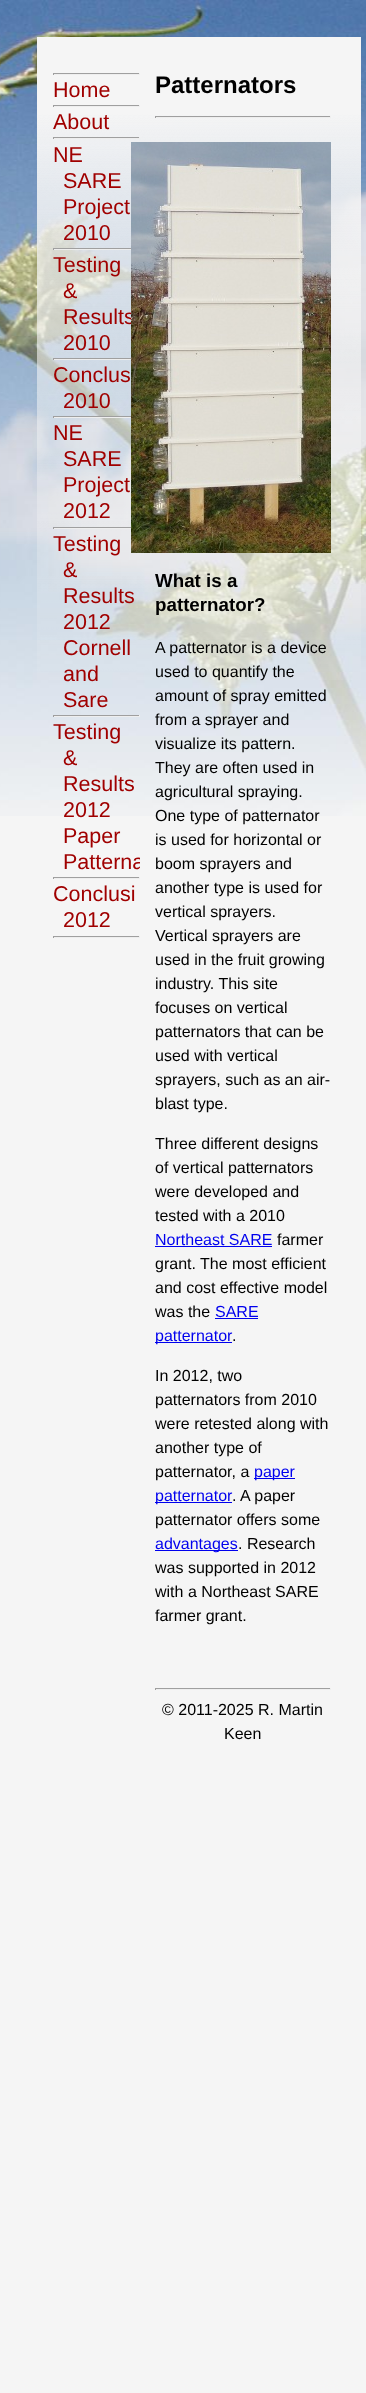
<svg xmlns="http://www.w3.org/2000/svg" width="366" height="2393">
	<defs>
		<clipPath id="clip1"><rect x="53" y="53" width="87" height="887" /></clipPath>
	</defs>
	<rect width="100%" height="100%" fill="#F5F5F5" />
	<image x="0" y="0" width="366" height="816" href="assets/img1.png" />
	<image x="37" y="37" width="324" height="643" href="assets/img2.png" />
	<rect x="53" y="73" width="87" height="1" fill="#9F9F9F" />
	<rect x="139" y="73" width="1" height="2" fill="#EEEEEE" />
	<rect x="53" y="74" width="87" height="1" fill="#EEEEEE" />
	<rect x="53" y="73" width="1" height="2" fill="#9F9F9F" />
	<text x="53" y="97" font-family="Liberation Sans" font-size="21.5" fill="#A00000">Home</text>
	<rect x="53" y="105" width="87" height="1" fill="#9F9F9F" />
	<rect x="139" y="105" width="1" height="2" fill="#EEEEEE" />
	<rect x="53" y="106" width="87" height="1" fill="#EEEEEE" />
	<rect x="53" y="105" width="1" height="2" fill="#9F9F9F" />
	<text x="53" y="129" font-family="Liberation Sans" font-size="21.5" fill="#A00000">About</text>
	<rect x="53" y="137" width="87" height="1" fill="#9F9F9F" />
	<rect x="139" y="137" width="1" height="2" fill="#EEEEEE" />
	<rect x="53" y="138" width="87" height="1" fill="#EEEEEE" />
	<rect x="53" y="137" width="1" height="2" fill="#9F9F9F" />
	<g font-family="Liberation Sans" font-size="21.5" fill="#A00000">
		<text x="53" y="162">NE</text>
		<text x="63" y="188">SARE</text>
		<text x="63" y="214">Project</text>
		<text x="63" y="240">2010</text>
	</g>
	<rect x="53" y="248" width="78" height="1" fill="#9F9F9F" />
	<rect x="53" y="249" width="78" height="1" fill="#EEEEEE" />
	<rect x="53" y="248" width="1" height="2" fill="#9F9F9F" />
	<g font-family="Liberation Sans" font-size="21.5" fill="#A00000">
		<text x="53" y="272">Testing</text>
		<text x="63" y="298">&amp;</text>
		<text x="63" y="324">Results</text>
		<text x="63" y="350">2010</text>
	</g>
	<rect x="53" y="358" width="78" height="1" fill="#9F9F9F" />
	<rect x="53" y="359" width="78" height="1" fill="#EEEEEE" />
	<rect x="53" y="358" width="1" height="2" fill="#9F9F9F" />
	<g font-family="Liberation Sans" font-size="21.5" fill="#A00000">
		<text x="53" y="382">Conclus</text>
		<text x="63" y="408">2010</text>
	</g>
	<rect x="53" y="416" width="78" height="1" fill="#9F9F9F" />
	<rect x="53" y="417" width="78" height="1" fill="#EEEEEE" />
	<rect x="53" y="416" width="1" height="2" fill="#9F9F9F" />
	<g font-family="Liberation Sans" font-size="21.5" fill="#A00000">
		<text x="53" y="440">NE</text>
		<text x="63" y="466">SARE</text>
		<text x="63" y="492">Project</text>
		<text x="63" y="518">2012</text>
	</g>
	<rect x="53" y="527" width="78" height="1" fill="#9F9F9F" />
	<rect x="53" y="528" width="78" height="1" fill="#EEEEEE" />
	<rect x="53" y="527" width="1" height="2" fill="#9F9F9F" />
	<g font-family="Liberation Sans" font-size="21.5" fill="#A00000">
		<text x="53" y="551">Testing</text>
		<text x="63" y="577">&amp;</text>
		<text x="63" y="603">Results</text>
		<text x="63" y="629">2012</text>
		<text x="63" y="655">Cornell</text>
		<text x="63" y="681">and</text>
		<text x="63" y="707">Sare</text>
	</g>
	<rect x="53" y="715" width="87" height="1" fill="#9F9F9F" />
	<rect x="139" y="715" width="1" height="2" fill="#EEEEEE" />
	<rect x="53" y="716" width="87" height="1" fill="#EEEEEE" />
	<rect x="53" y="715" width="1" height="2" fill="#9F9F9F" />
	<g font-family="Liberation Sans" font-size="21.5" fill="#A00000">
		<text x="53" y="739">Testing</text>
		<text x="63" y="765">&amp;</text>
		<text x="63" y="791">Results</text>
		<text x="63" y="817">2012</text>
		<text x="63" y="843">Paper</text>
	</g>
	<g clip-path="url(#clip1)">
		<text x="63" y="869" font-family="Liberation Sans" font-size="21.5" fill="#A00000">Patterna</text>
	</g>
	<rect x="53" y="877" width="87" height="1" fill="#9F9F9F" />
	<rect x="139" y="877" width="1" height="2" fill="#EEEEEE" />
	<rect x="53" y="878" width="87" height="1" fill="#EEEEEE" />
	<rect x="53" y="877" width="1" height="2" fill="#9F9F9F" />
	<g font-family="Liberation Sans" font-size="21.5" fill="#A00000">
		<text x="53" y="901">Conclusi</text>
		<text x="63" y="927">2012</text>
	</g>
	<rect x="53" y="936" width="87" height="1" fill="#9F9F9F" />
	<rect x="139" y="936" width="1" height="2" fill="#EEEEEE" />
	<rect x="53" y="937" width="87" height="1" fill="#EEEEEE" />
	<rect x="53" y="936" width="1" height="2" fill="#9F9F9F" />
	<text x="155" y="93" font-family="Liberation Sans" font-size="24" font-weight="700" fill="#000000">Patternators</text>
	<rect x="155" y="116" width="176" height="1" fill="#9F9F9F" />
	<rect x="330" y="116" width="1" height="2" fill="#EEEEEE" />
	<rect x="155" y="117" width="176" height="1" fill="#EEEEEE" />
	<rect x="155" y="116" width="1" height="2" fill="#9F9F9F" />
	<image x="131" y="142" width="200" height="411" href="assets/img3.png" />
	<g font-family="Liberation Sans" font-size="18.75" font-weight="700" fill="#000000">
		<text x="155" y="587">What is a</text>
		<text x="155" y="611">patternator?</text>
	</g>
	<g font-family="Liberation Sans" font-size="16" fill="#000000">
		<text x="155" y="653">A patternator is a device</text>
		<text x="155" y="677">used to quantify the</text>
		<text x="155" y="701">amount of spray emitted</text>
		<text x="155" y="725">from a sprayer and</text>
		<text x="155" y="749">visualize its pattern.</text>
		<text x="155" y="773">They are often used in</text>
		<text x="155" y="797">agricultural spraying.</text>
		<text x="155" y="821">One type of patternator</text>
		<text x="155" y="845">is used for horizontal or</text>
		<text x="155" y="869">boom sprayers and</text>
		<text x="155" y="893">another type is used for</text>
		<text x="155" y="917">vertical sprayers.</text>
		<text x="155" y="941">Vertical sprayers are</text>
		<text x="155" y="965">used in the fruit growing</text>
		<text x="155" y="989">industry. This site</text>
		<text x="155" y="1013">focuses on vertical</text>
		<text x="155" y="1037">patternators that can be</text>
		<text x="155" y="1061">used with vertical</text>
		<text x="155" y="1085">sprayers, such as an air-</text>
		<text x="155" y="1109">blast type.</text>
		<text x="155" y="1149">Three different designs</text>
		<text x="155" y="1173">of vertical patternators</text>
		<text x="155" y="1197">were developed and</text>
		<text x="155" y="1221">tested with a 2010</text>
	</g>
	<text x="155" y="1245" font-family="Liberation Sans" font-size="16" fill="#0000EE">Northeast SARE</text>
	<rect x="155" y="1246" width="117" height="1" fill="#0000EE" />
	<g font-family="Liberation Sans" font-size="16" fill="#000000">
		<text x="277" y="1245">farmer</text>
		<text x="155" y="1269">grant. The most efficient</text>
		<text x="155" y="1293">and cost effective model</text>
		<text x="155" y="1317">was the</text>
	</g>
	<text x="215" y="1317" font-family="Liberation Sans" font-size="16" fill="#0000EE">SARE</text>
	<rect x="215" y="1318" width="43" height="1" fill="#0000EE" />
	<rect x="155" y="1342" width="77" height="1" fill="#0000EE" />
	<text x="155" y="1341" font-family="Liberation Sans" font-size="16" fill="#0000EE">patternator</text>
	<g font-family="Liberation Sans" font-size="16" fill="#000000">
		<text x="232" y="1341">.</text>
		<text x="155" y="1381">In 2012, two</text>
		<text x="155" y="1405">patternators from 2010</text>
		<text x="155" y="1429">were retested along with</text>
		<text x="155" y="1453">another type of</text>
		<text x="155" y="1477">patternator, a</text>
	</g>
	<rect x="254" y="1478" width="41" height="1" fill="#0000EE" />
	<text x="254" y="1477" font-family="Liberation Sans" font-size="16" fill="#0000EE">paper</text>
	<rect x="155" y="1502" width="77" height="1" fill="#0000EE" />
	<text x="155" y="1501" font-family="Liberation Sans" font-size="16" fill="#0000EE">patternator</text>
	<g font-family="Liberation Sans" font-size="16" fill="#000000">
		<text x="232" y="1501">. A paper</text>
		<text x="155" y="1525">patternator offers some</text>
	</g>
	<rect x="155" y="1550" width="83" height="1" fill="#0000EE" />
	<text x="155" y="1549" font-family="Liberation Sans" font-size="16" fill="#0000EE">advantages</text>
	<g font-family="Liberation Sans" font-size="16" fill="#000000">
		<text x="238" y="1549">. Research</text>
		<text x="155" y="1573">was supported in 2012</text>
		<text x="155" y="1597">with a Northeast SARE</text>
		<text x="155" y="1621">farmer grant.</text>
	</g>
	<rect x="155" y="1688" width="176" height="1" fill="#9F9F9F" />
	<rect x="330" y="1688" width="1" height="2" fill="#EEEEEE" />
	<rect x="155" y="1689" width="176" height="1" fill="#EEEEEE" />
	<rect x="155" y="1688" width="1" height="2" fill="#9F9F9F" />
	<g font-family="Liberation Sans" font-size="16" fill="#000000">
		<text x="162" y="1715">© 2011-2025 R. Martin</text>
		<text x="224" y="1739">Keen</text>
	</g>
</svg>
